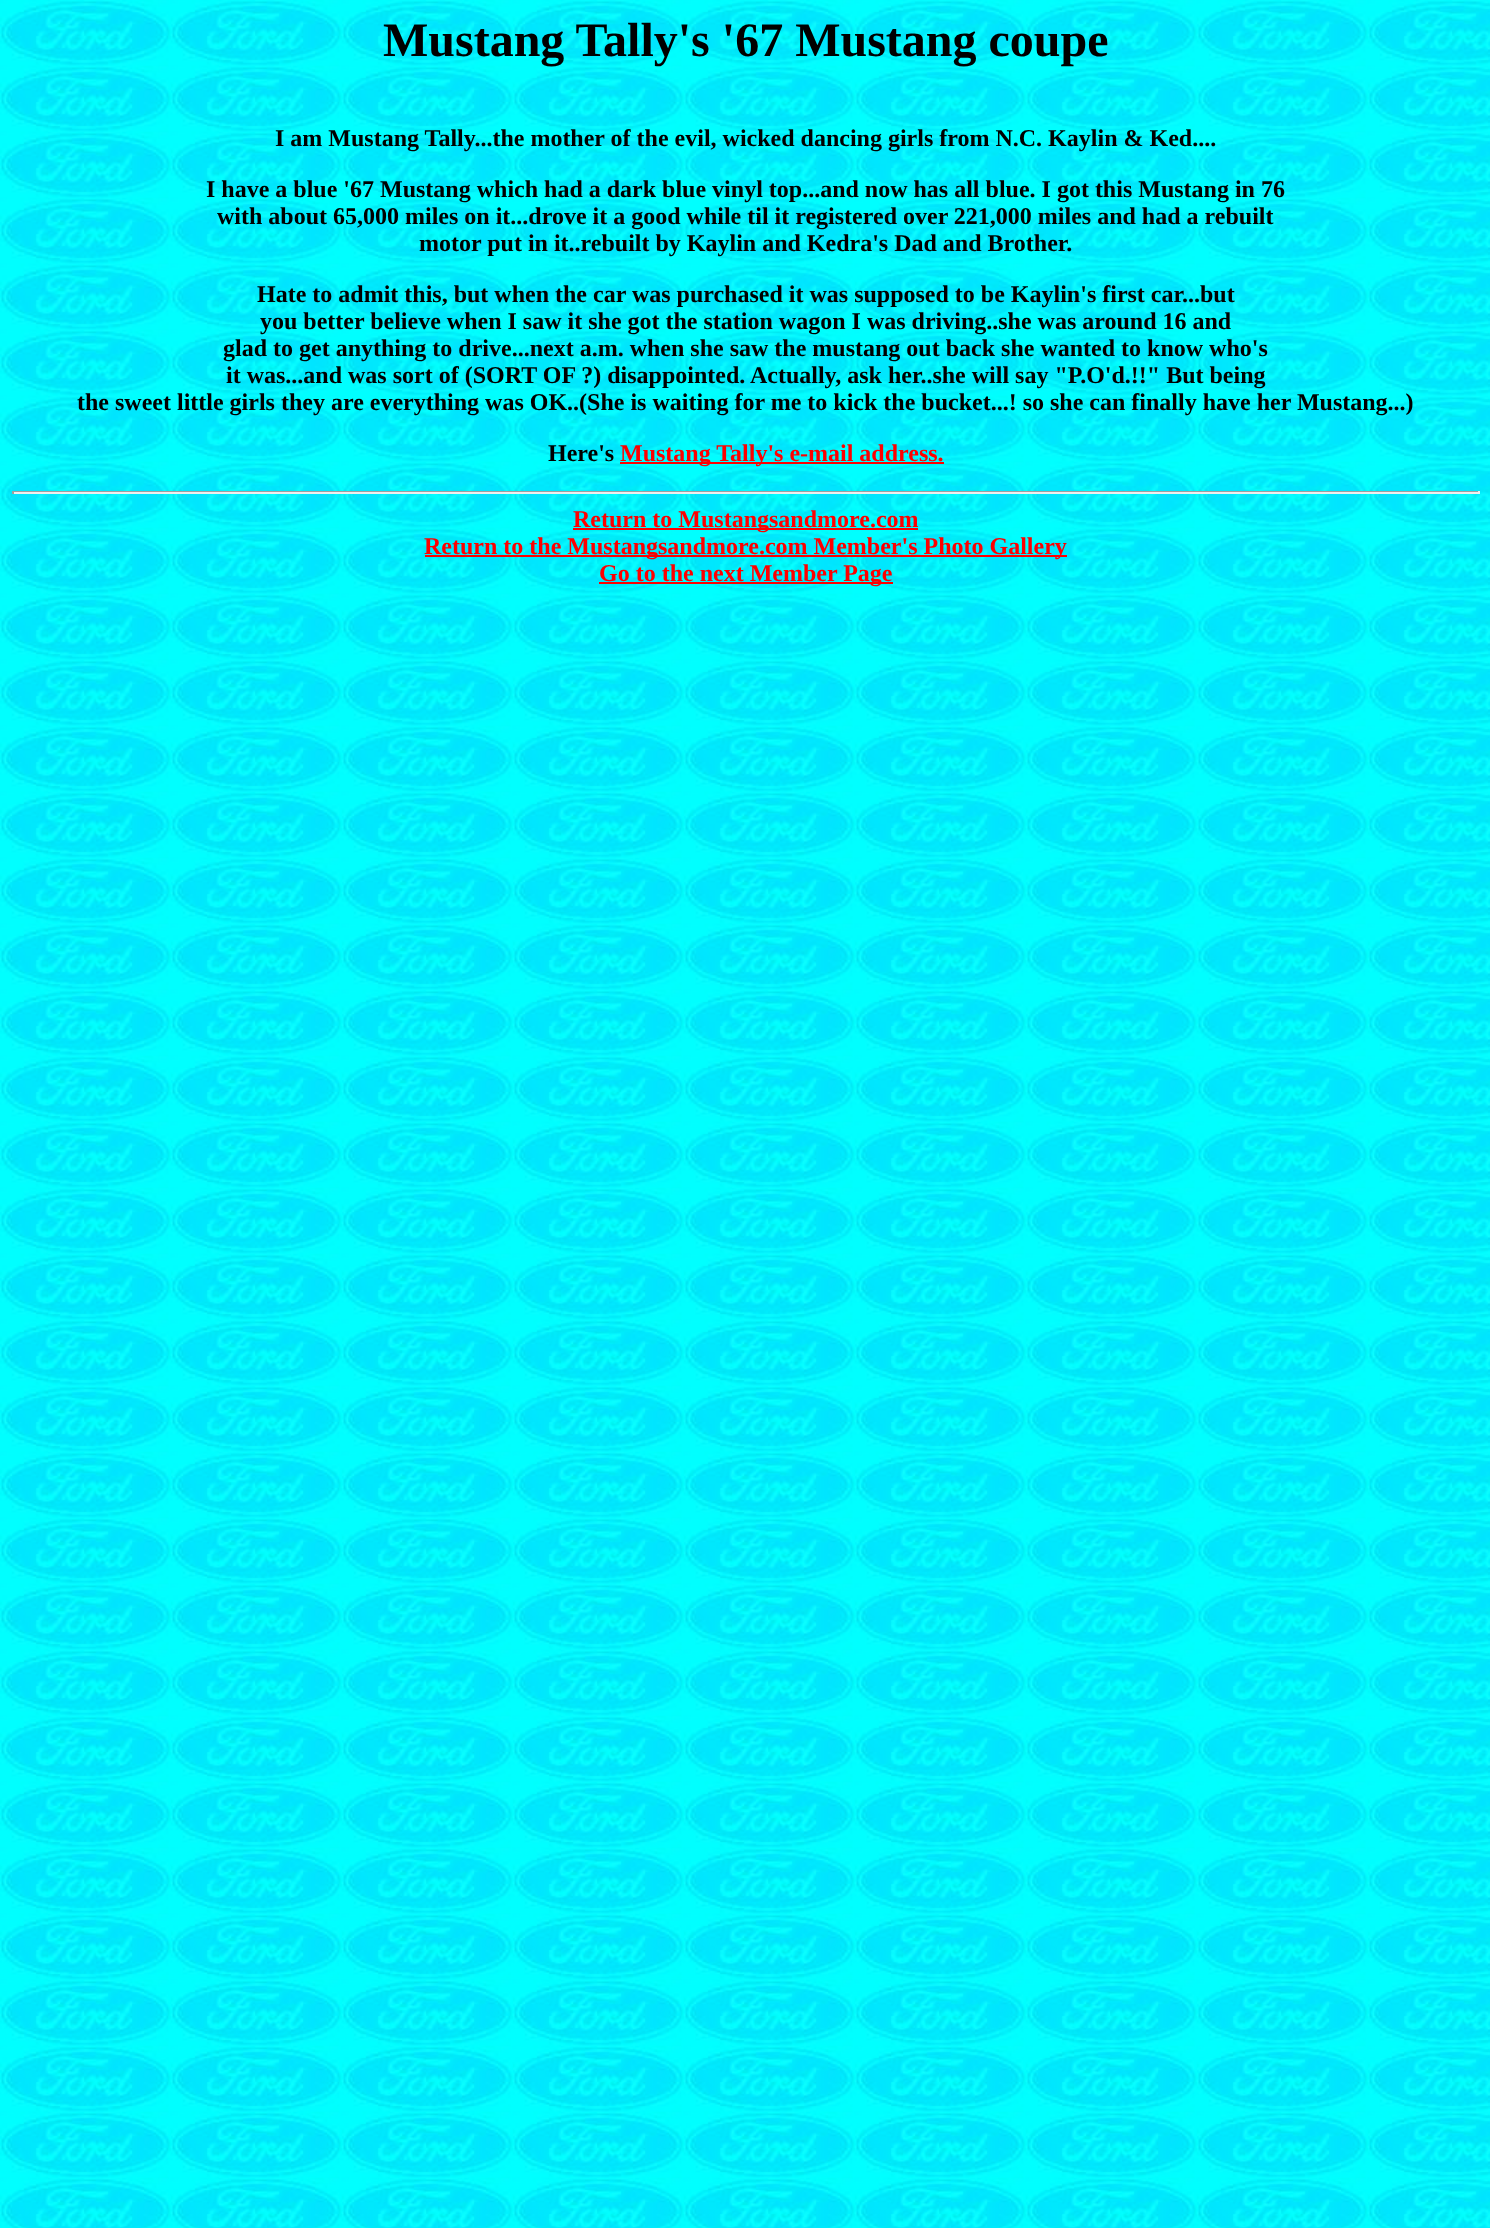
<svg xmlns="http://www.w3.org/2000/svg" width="1490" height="2228">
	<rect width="100%" height="100%" fill="#FFFFFF" />
	<image x="0" y="0" width="1490" height="2228" href="assets/img1.png" />
	<text x="383" y="56" font-family="Liberation Serif" font-size="48" font-weight="700" fill="#000000">Mustang Tally's '67 Mustang coupe</text>
	<g font-family="Liberation Serif" font-size="24" font-weight="700" fill="#000000">
		<text x="275" y="146">I am Mustang Tally...the mother of the evil, wicked dancing girls from N.C. Kaylin &amp; Ked....</text>
		<text x="206" y="197">I have a blue '67 Mustang which had a dark blue vinyl top...and now has all blue. I got this Mustang in 76</text>
		<text x="217" y="224">with about 65,000 miles on it...drove it a good while til it registered over 221,000 miles and had a rebuilt</text>
		<text x="419" y="251">motor put in it..rebuilt by Kaylin and Kedra's Dad and Brother.</text>
		<text x="257" y="302">Hate to admit this, but when the car was purchased it was supposed to be Kaylin's first car...but</text>
		<text x="260" y="329">you better believe when I saw it she got the station wagon I was driving..she was around 16 and</text>
		<text x="223" y="356">glad to get anything to drive...next a.m. when she saw the mustang out back she wanted to know who's</text>
		<text x="226" y="383">it was...and was sort of (SORT OF ?) disappointed. Actually, ask her..she will say "P.O'd.!!" But being</text>
		<text x="77" y="410">the sweet little girls they are everything was OK..(She is waiting for me to kick the bucket...! so she can finally have her Mustang...)</text>
		<text x="548" y="461">Here's</text>
	</g>
	<rect x="620" y="462" width="324" height="2" fill="#FF0000" />
	<text x="620" y="461" font-family="Liberation Serif" font-size="24" font-weight="700" fill="#FF0000">Mustang Tally's e-mail address.</text>
	<rect x="12" y="491" width="1467" height="1" fill="#9F9F9F" />
	<rect x="1478" y="491" width="2" height="3" fill="#EEEEEE" />
	<rect x="12" y="492" width="1467" height="2" fill="#EEEEEE" />
	<rect x="12" y="491" width="2" height="3" fill="#9F9F9F" />
	<rect x="573" y="528" width="345" height="2" fill="#FF0000" />
	<text x="573" y="527" font-family="Liberation Serif" font-size="24" font-weight="700" fill="#FF0000">Return to Mustangsandmore.com</text>
	<rect x="425" y="555" width="642" height="2" fill="#FF0000" />
	<text x="424" y="554" font-family="Liberation Serif" font-size="24" font-weight="700" fill="#FF0000">Return to the Mustangsandmore.com Member's Photo Gallery</text>
	<rect x="599" y="582" width="294" height="2" fill="#FF0000" />
	<text x="599" y="581" font-family="Liberation Serif" font-size="24" font-weight="700" fill="#FF0000">Go to the next Member Page</text>
</svg>
